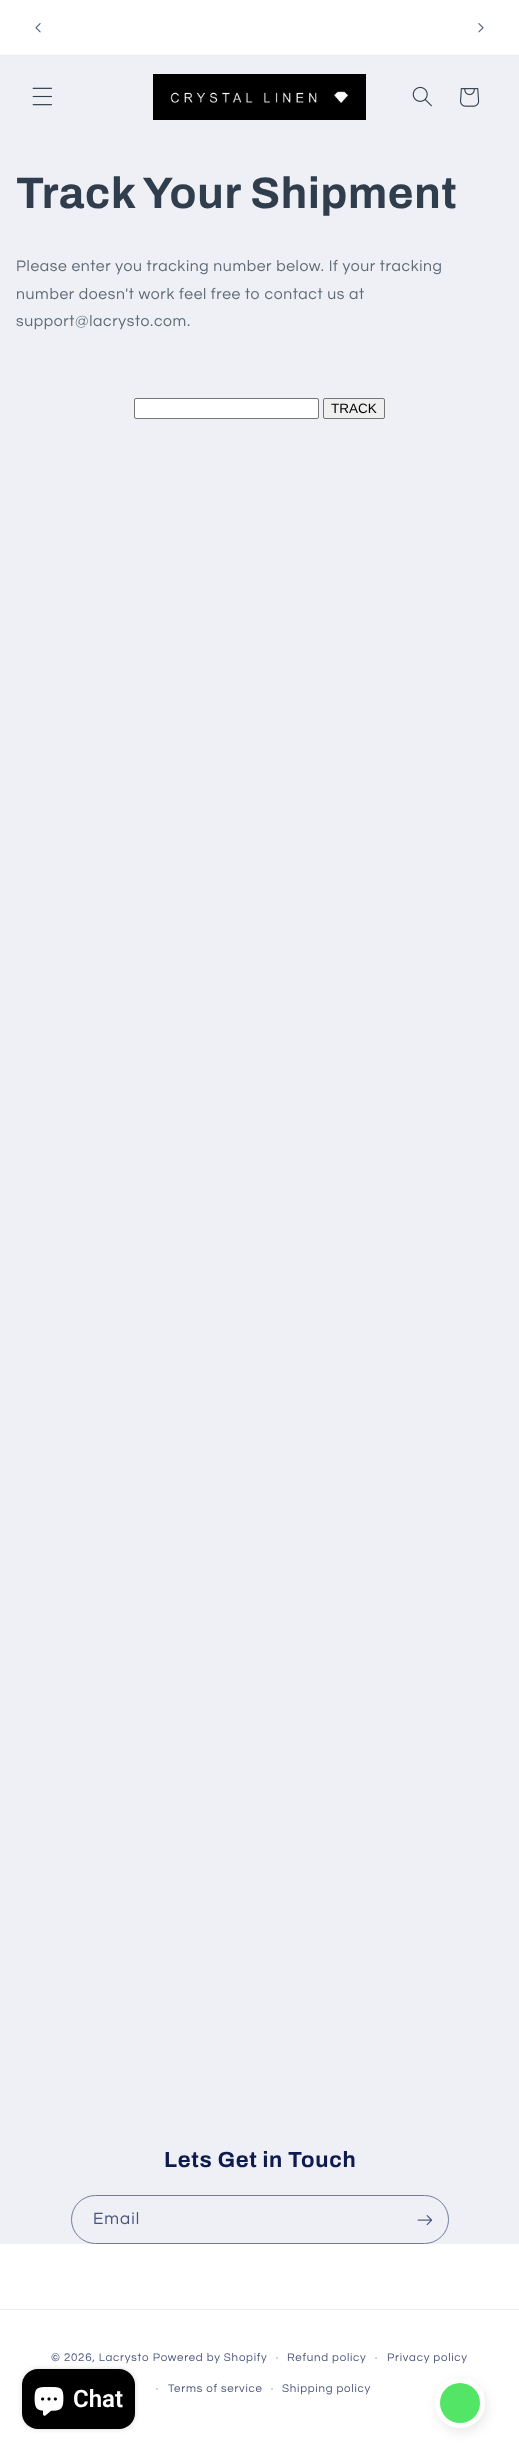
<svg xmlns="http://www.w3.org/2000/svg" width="519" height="2450">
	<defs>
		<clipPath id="clip1"><path d="M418 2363H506V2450H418ZM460 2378C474 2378 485 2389 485 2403C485 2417 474 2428 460 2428C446 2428 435 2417 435 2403C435 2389 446 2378 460 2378Z" clip-rule="evenodd" /></clipPath>
	</defs>
	<rect width="100%" height="100%" fill="#EFF0F5" />
	<rect x="0" y="0" width="519" height="55" fill="#FFFFFF" />
	<rect x="0" y="55" width="519" height="1" fill="#ECEDF1" />
	<image x="35" y="23" width="6" height="10" href="assets/img1.png" />
	<image x="478" y="23" width="6" height="10" href="assets/img2.png" />
	<image x="32" y="87" width="20" height="19" href="assets/img3.png" />
	<image x="153" y="74" width="213" height="46" href="assets/img4.png" />
	<image x="412" y="86" width="20" height="21" href="assets/img5.png" />
	<image x="460" y="88" width="20" height="19" href="assets/img6.png" />
	<text x="16" y="208" font-family="Archivo" font-size="44" font-weight="700" letter-spacing="0.7" fill="#2F3D4C">Track Your Shipment</text>
	<g font-family="Questrial" font-size="15.75" letter-spacing="0.63" fill="#5F6A76">
		<text x="16" y="271">Please enter you tracking number below. If your tracking</text>
		<text x="16" y="299">number doesn't work feel free to contact us at</text>
		<text x="16" y="326">support@lacrysto.com.</text>
	</g>
	<rect x="134.5" y="398.5" width="184" height="20" rx="1.5" fill="#FFFFFF" stroke="#767676" />
	<rect x="323.5" y="398.5" width="61" height="20" rx="1.5" fill="#EFEFEF" stroke="#767676" />
	<text x="331" y="413" font-family="Liberation Sans" font-size="13.5" fill="#000000">TRACK</text>
	<text x="164" y="2167" font-family="Archivo" font-size="22" font-weight="700" letter-spacing="0.7" fill="#0E1B4D">Lets Get in Touch</text>
	<rect x="71.5" y="2195.5" width="377" height="48" rx="24" fill="none" stroke="#737B99" />
	<text x="93" y="2224" font-family="Questrial" font-size="17" letter-spacing="1" fill="#4A547A">Email</text>
	<image x="417" y="2215" width="15" height="11" href="assets/img7.png" />
	<rect x="0" y="2244" width="519" height="206" fill="#FFFFFF" />
	<rect x="0" y="2309" width="519" height="1" fill="#ECEDF1" />
	<text x="51" y="2361" font-family="Questrial" font-size="11.5" letter-spacing="0.75" fill="#4A547A">© 2026, Lacrysto Powered by Shopify</text>
	<text x="276" y="2361" font-family="Questrial" font-size="10" letter-spacing="0.75" fill="#4A547A">·</text>
	<text x="287" y="2361" font-family="Questrial" font-size="11.5" letter-spacing="0.75" fill="#4A547A">Refund policy</text>
	<text x="375" y="2361" font-family="Questrial" font-size="10" letter-spacing="0.75" fill="#4A547A">·</text>
	<text x="387" y="2361" font-family="Questrial" font-size="11.5" letter-spacing="0.75" fill="#4A547A">Privacy policy</text>
	<text x="156" y="2392" font-family="Questrial" font-size="10" letter-spacing="0.75" fill="#4A547A">·</text>
	<text x="168" y="2392" font-family="Questrial" font-size="11.5" letter-spacing="0.75" fill="#4A547A">Terms of service</text>
	<text x="271" y="2392" font-family="Questrial" font-size="10" letter-spacing="0.75" fill="#4A547A">·</text>
	<text x="282" y="2392" font-family="Questrial" font-size="11.5" letter-spacing="0.75" fill="#4A547A">Shipping policy</text>
	<rect x="22" y="2369" width="113" height="60" rx="16" fill="#000000" fill-opacity="0.15" filter="blur(2.5px)" />
	<rect x="22" y="2369" width="113" height="60" rx="16" fill="#000000" />
	<image x="34" y="2387" width="30" height="29" href="assets/img8.png" />
	<text x="73" y="2407" font-family="Roboto" font-size="24" font-weight="600" fill="#FFFFFF">Chat</text>
	<g clip-path="url(#clip1)">
		<rect x="437" y="2382" width="50" height="50" rx="25" fill="#000000" fill-opacity="0.09" filter="blur(6px)" />
	</g>
	<circle cx="460" cy="2403" r="20" fill="#53E666" />
</svg>
